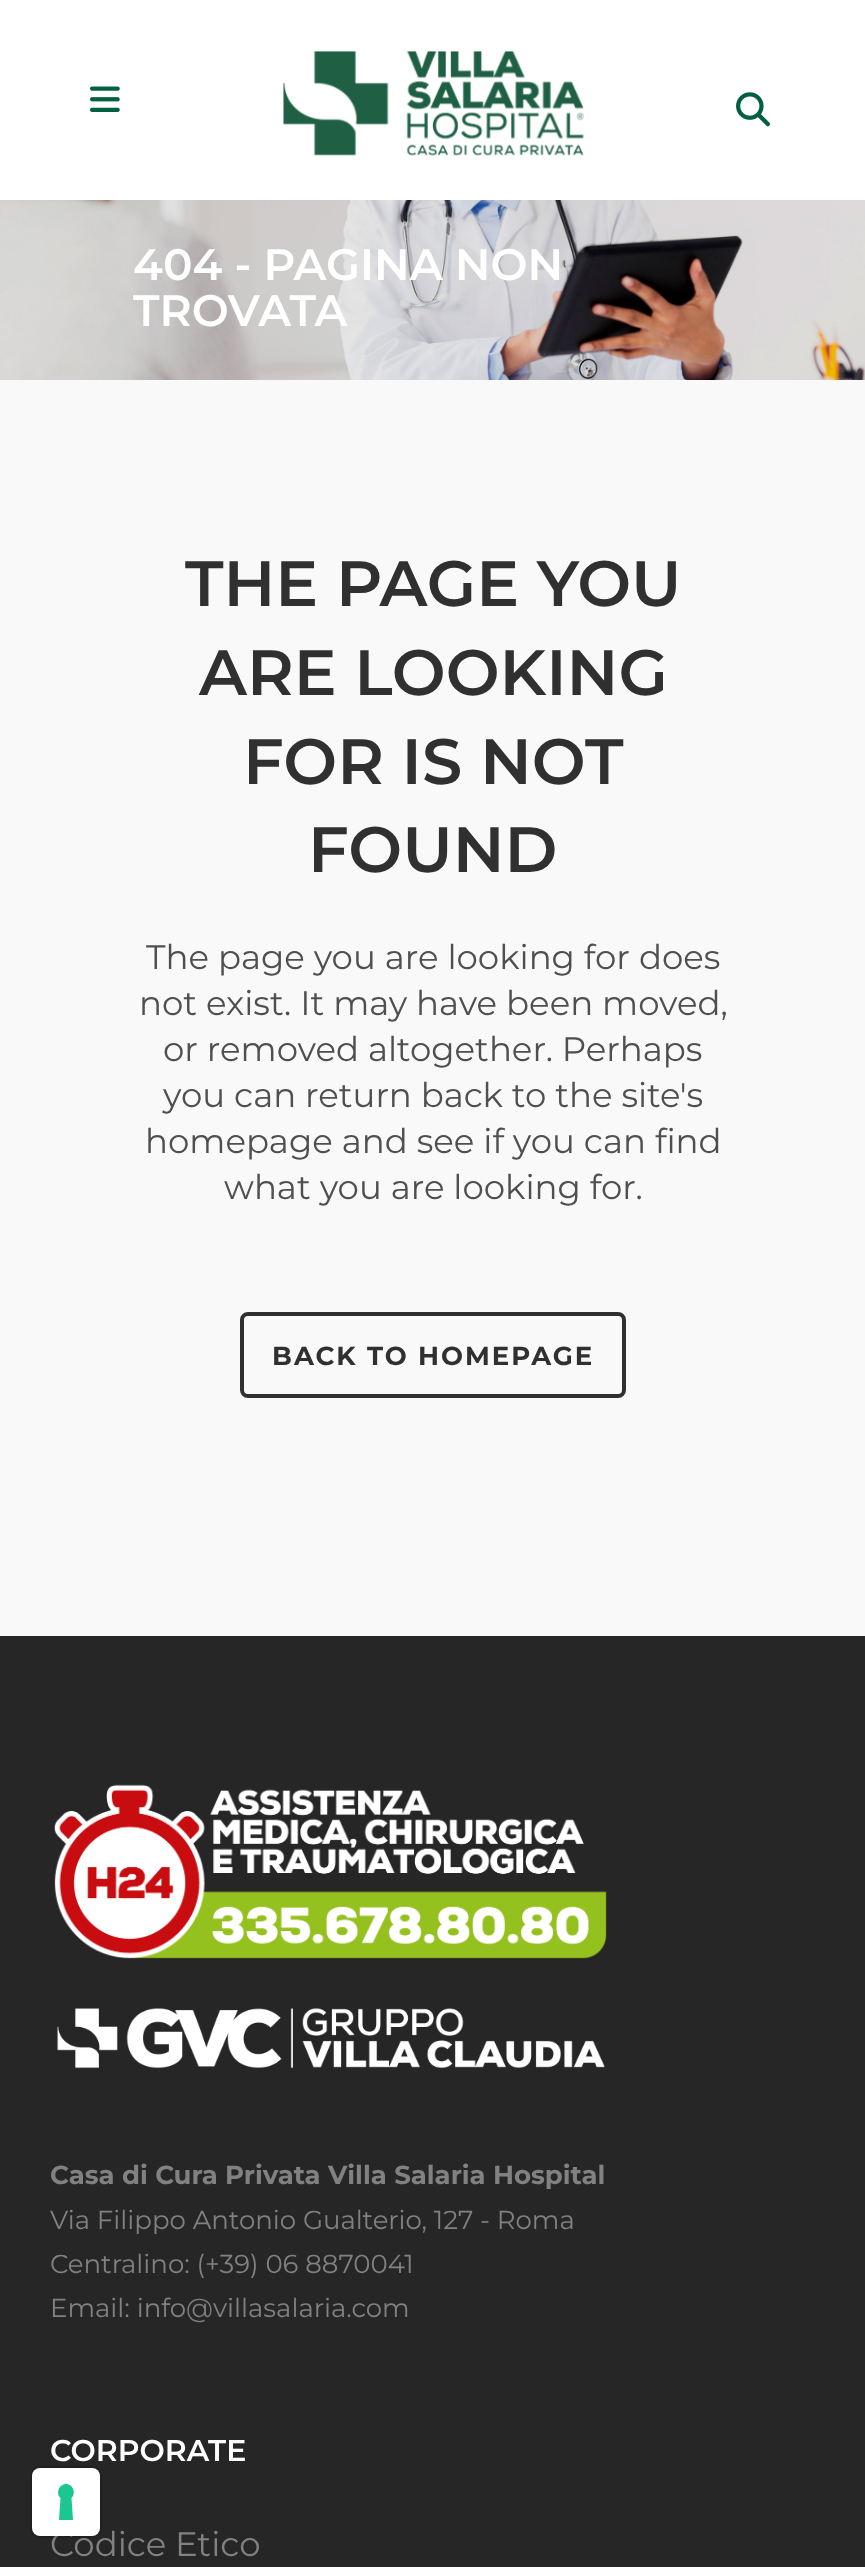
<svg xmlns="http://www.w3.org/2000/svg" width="865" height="2567">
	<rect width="100%" height="100%" fill="#F9F9F9" />
	<rect x="0" y="0" width="865" height="200" fill="#FFFFFF" />
	<image x="90" y="86" width="30" height="26" href="assets/img1.png" />
	<image x="283" y="51" width="301" height="105" href="assets/img2.png" />
	<image x="736" y="92" width="34" height="35" href="assets/img3.png" />
	<image x="0" y="200" width="865" height="180" href="assets/img4.png" />
	<g font-family="Montserrat" font-size="44" font-weight="600" fill="#FFFFFF">
		<text x="133" y="280">404 - PAGINA NON</text>
		<text x="133" y="326">TROVATA</text>
	</g>
	<g font-family="Montserrat" font-size="64" font-weight="600" fill="#303030">
		<text x="185" y="606">THE PAGE YOU</text>
		<text x="199" y="695">ARE LOOKING</text>
		<text x="243" y="784">FOR IS NOT</text>
		<text x="308" y="872">FOUND</text>
	</g>
	<g font-family="Montserrat" font-size="34" fill="#4F4F4F">
		<text x="146" y="969">The page you are looking for does</text>
		<text x="139" y="1015">not exist. It may have been moved,</text>
		<text x="163" y="1061">or removed altogether. Perhaps</text>
		<text x="163" y="1107">you can return back to the site's</text>
		<text x="145" y="1153">homepage and see if you can find</text>
		<text x="224" y="1199">what you are looking for.</text>
	</g>
	<rect x="242" y="1314" width="382" height="82" rx="6" fill="none" stroke="#303030" stroke-width="4" />
	<text x="272" y="1365" font-family="Montserrat" font-size="26" font-weight="700" letter-spacing="2" fill="#303030">BACK TO HOMEPAGE</text>
	<rect x="0" y="1636" width="865" height="931" fill="#262626" />
	<image x="54" y="1784" width="553" height="175" href="assets/img5.png" />
	<image x="57" y="2008" width="548" height="61" href="assets/img6.png" />
	<text x="50" y="2184" font-family="Montserrat" font-size="26" font-weight="700" fill="#818181">Casa di Cura Privata Villa Salaria Hospital</text>
	<g font-family="Montserrat" font-size="26" fill="#818181">
		<text x="50" y="2229">Via Filippo Antonio Gualterio, 127 - Roma</text>
		<text x="50" y="2273">Centralino: (+39) 06 8870041</text>
		<text x="50" y="2317">Email: info@villasalaria.com</text>
	</g>
	<text x="50" y="2461" font-family="Montserrat" font-size="30" font-weight="600" fill="#FFFFFF">CORPORATE</text>
	<text x="50" y="2556" font-family="Montserrat" font-size="34" fill="#818181">Codice Etico</text>
	<rect x="31" y="2467" width="70" height="70" rx="9" fill="none" stroke="#000000" stroke-opacity="0.15" stroke-width="2" />
	<rect x="32" y="2468" width="68" height="68" rx="8" fill="#FFFFFF" />
	<path d="M66 2484C73 2484 76.5 2493.5 71.5 2498L73 2520H59L60.5 2498C55.5 2493.5 59 2484 66 2484Z" fill="#1CC691" fill-rule="evenodd" />
</svg>
